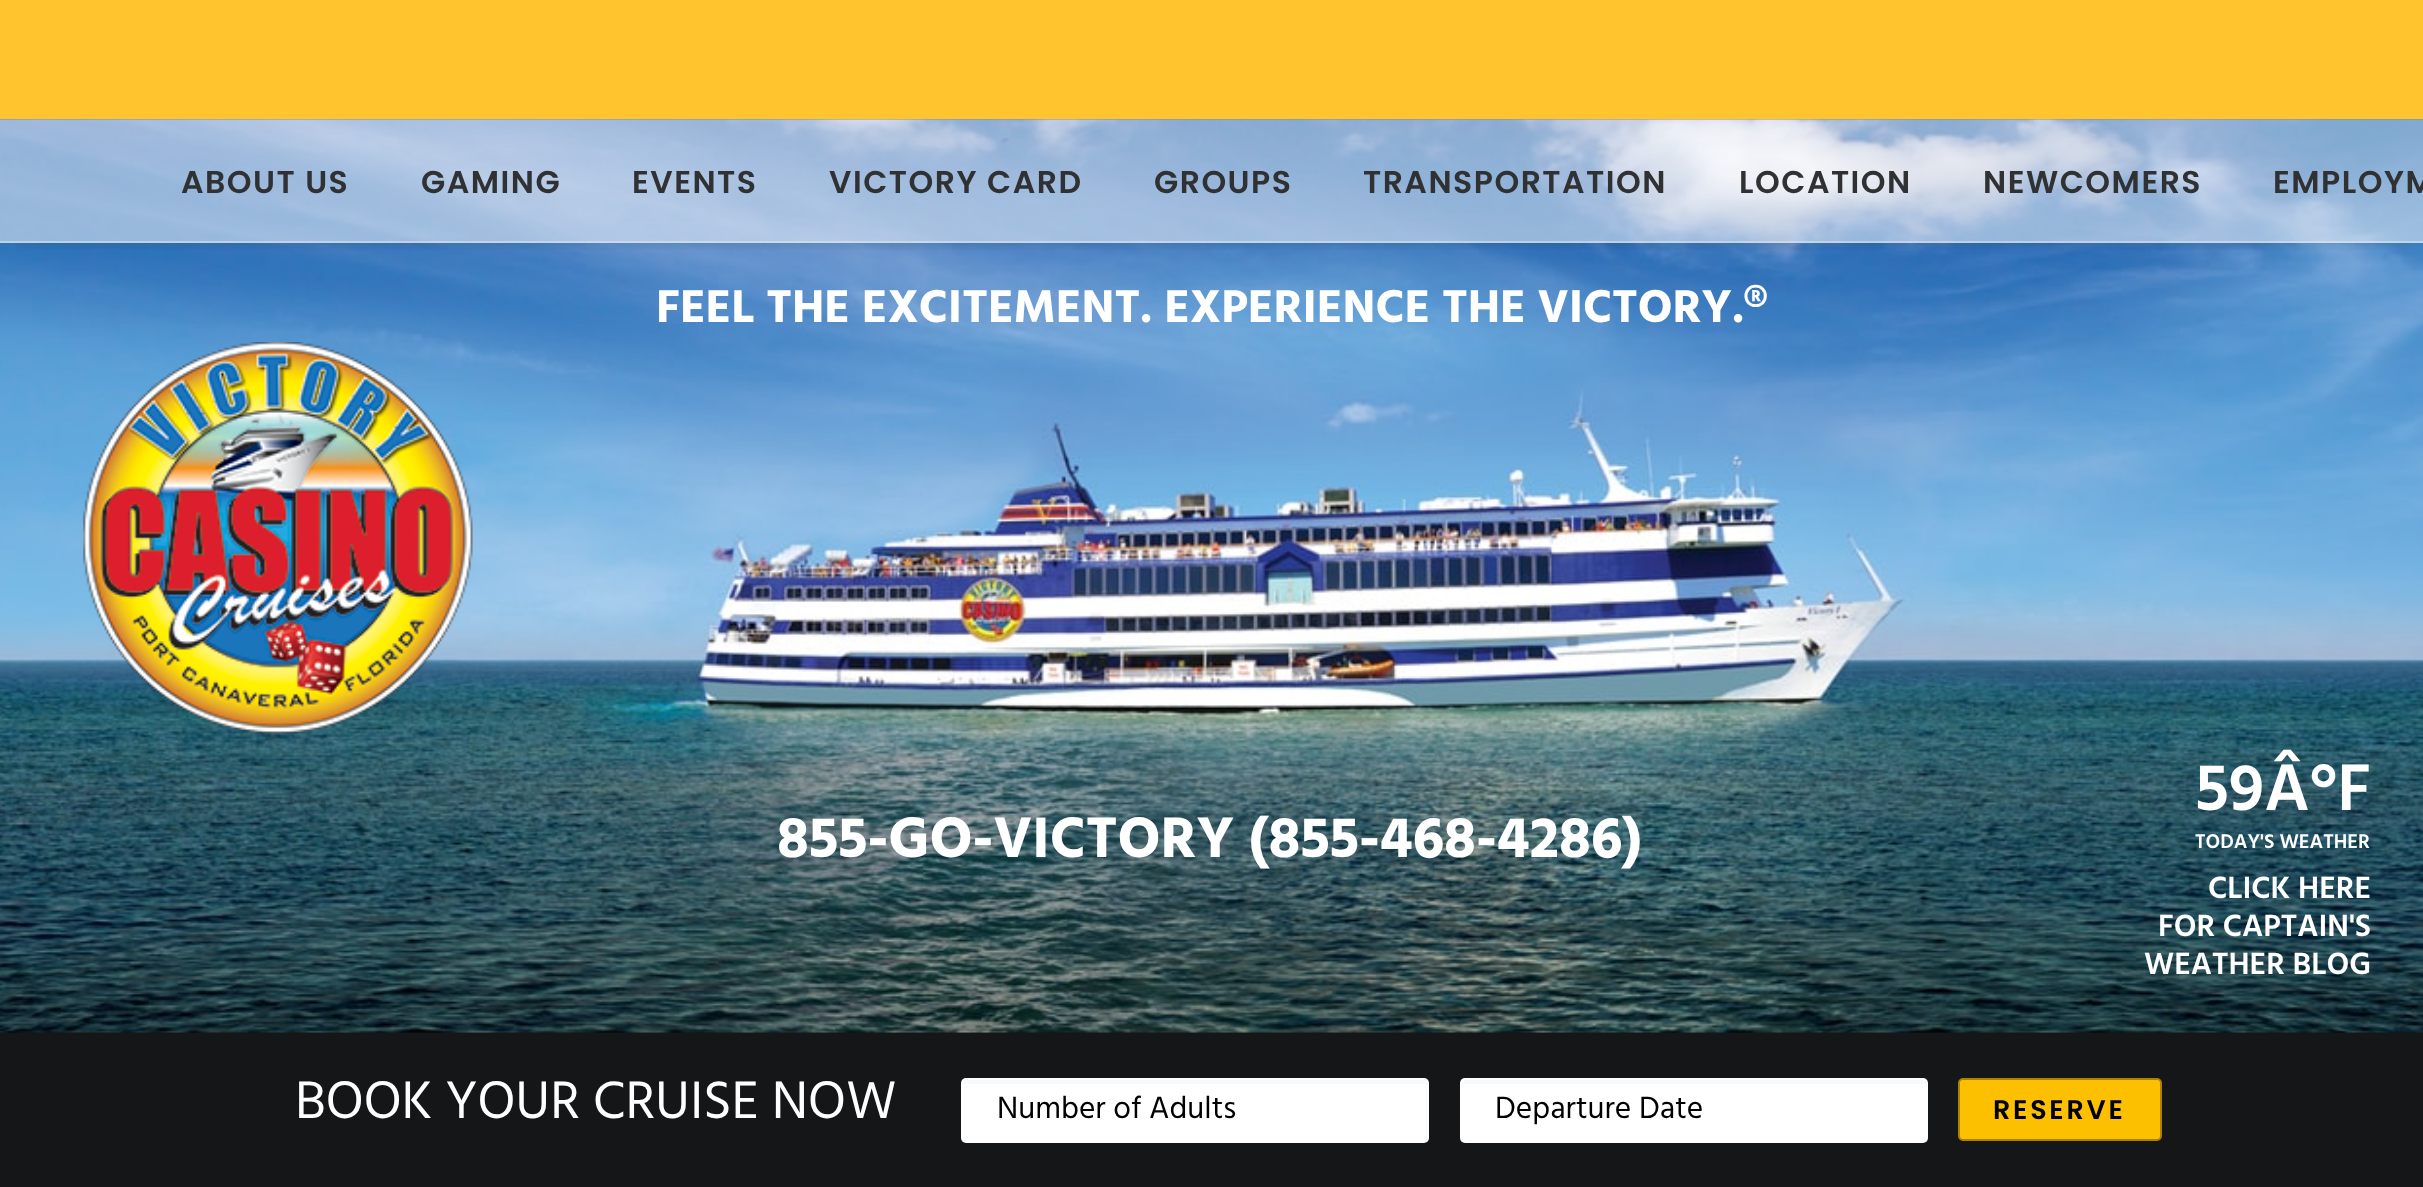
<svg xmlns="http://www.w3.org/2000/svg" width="2423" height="1187">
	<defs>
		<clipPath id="clip1"><rect x="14" y="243" width="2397" height="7" /></clipPath>
	</defs>
	<rect width="100%" height="100%" fill="#141618" />
	<rect x="0" y="0" width="2423" height="119" fill="#FFC42E" />
	<image x="0" y="119" width="2423" height="914" href="assets/img1.png" />
	<g clip-path="url(#clip1)">
		<rect x="20" y="151" width="2385" height="79" fill="#000000" fill-opacity="0.6" filter="blur(11px)" />
	</g>
	<rect x="0" y="119" width="2423" height="124" fill="#FFFFFF" fill-opacity="0.5" />
	<rect x="0" y="241" width="2423" height="2" fill="#EAEAEA" fill-opacity="0.5" />
	<g font-family="Poppins" font-size="31.5" font-weight="600" letter-spacing="1.5" fill="#303133">
		<text x="181" y="193">ABOUT US</text>
		<text x="421" y="193">GAMING</text>
		<text x="632" y="193">EVENTS</text>
		<text x="829" y="193">VICTORY CARD</text>
		<text x="1154" y="193">GROUPS</text>
		<text x="1363" y="193">TRANSPORTATION</text>
		<text x="1739" y="193">LOCATION</text>
		<text x="1983" y="193">NEWCOMERS</text>
		<text x="2273" y="193">EMPLOYM</text>
	</g>
	<text x="656" y="322" font-family="Hind" font-size="47.25" font-weight="700" fill="#FFFFFF">FEEL THE EXCITEMENT. EXPERIENCE THE VICTORY.®</text>
	<image x="83" y="342" width="390" height="392" href="assets/img2.png" />
	<text x="777" y="857" font-family="Hind" font-size="58.5" font-weight="700" fill="#FFFFFF">855-GO-VICTORY (855-468-4286)</text>
	<text x="2195" y="810" font-family="Hind" font-size="67.5" font-weight="600" fill="#FFFFFF">59Â°F</text>
	<text x="2195" y="848" font-family="Hind" font-size="20.25" font-weight="600" fill="#FFFFFF">TODAY'S WEATHER</text>
	<g font-family="Hind" font-size="31.5" font-weight="600" fill="#FFFFFF">
		<text x="2208" y="898">CLICK HERE</text>
		<text x="2158" y="936">FOR CAPTAIN'S</text>
		<text x="2144" y="974">WEATHER BLOG</text>
	</g>
	<text x="295" y="1118" font-family="Hind" font-size="54" fill="#FFFFFF">BOOK YOUR CRUISE NOW</text>
	<rect x="961" y="1078" width="468" height="65" rx="5" fill="#FFFFFF" />
	<path d="M965 1084H1424C1425 1084 1426 1086 1426 1087V1141C1427 1140 1427 1140 1427 1139V1082C1427 1081 1426 1080 1425 1080H965C964 1080 963 1081 963 1082V1087C963 1086 964 1084 965 1084Z" fill="#F9F9F9" />
	<text x="997" y="1118" font-family="Hind" font-size="31.5" fill="#000000">Number of Adults</text>
	<rect x="1460" y="1078" width="468" height="65" rx="5" fill="#FFFFFF" />
	<path d="M1465 1084H1924C1925 1084 1926 1086 1926 1087V1082C1926 1081 1925 1080 1924 1080H1465C1464 1080 1463 1081 1463 1082V1085Z" fill="#F9F9F9" />
	<text x="1495" y="1118" font-family="Hind" font-size="31.5" fill="#000000">Departure Date</text>
	<rect x="1959" y="1079" width="202" height="61" rx="4" fill="#FCC000" stroke="#AB8304" stroke-width="2" />
	<text x="1993" y="1119" font-family="Poppins" font-size="27" font-weight="600" letter-spacing="2.75" fill="#000000">RESERVE</text>
</svg>
